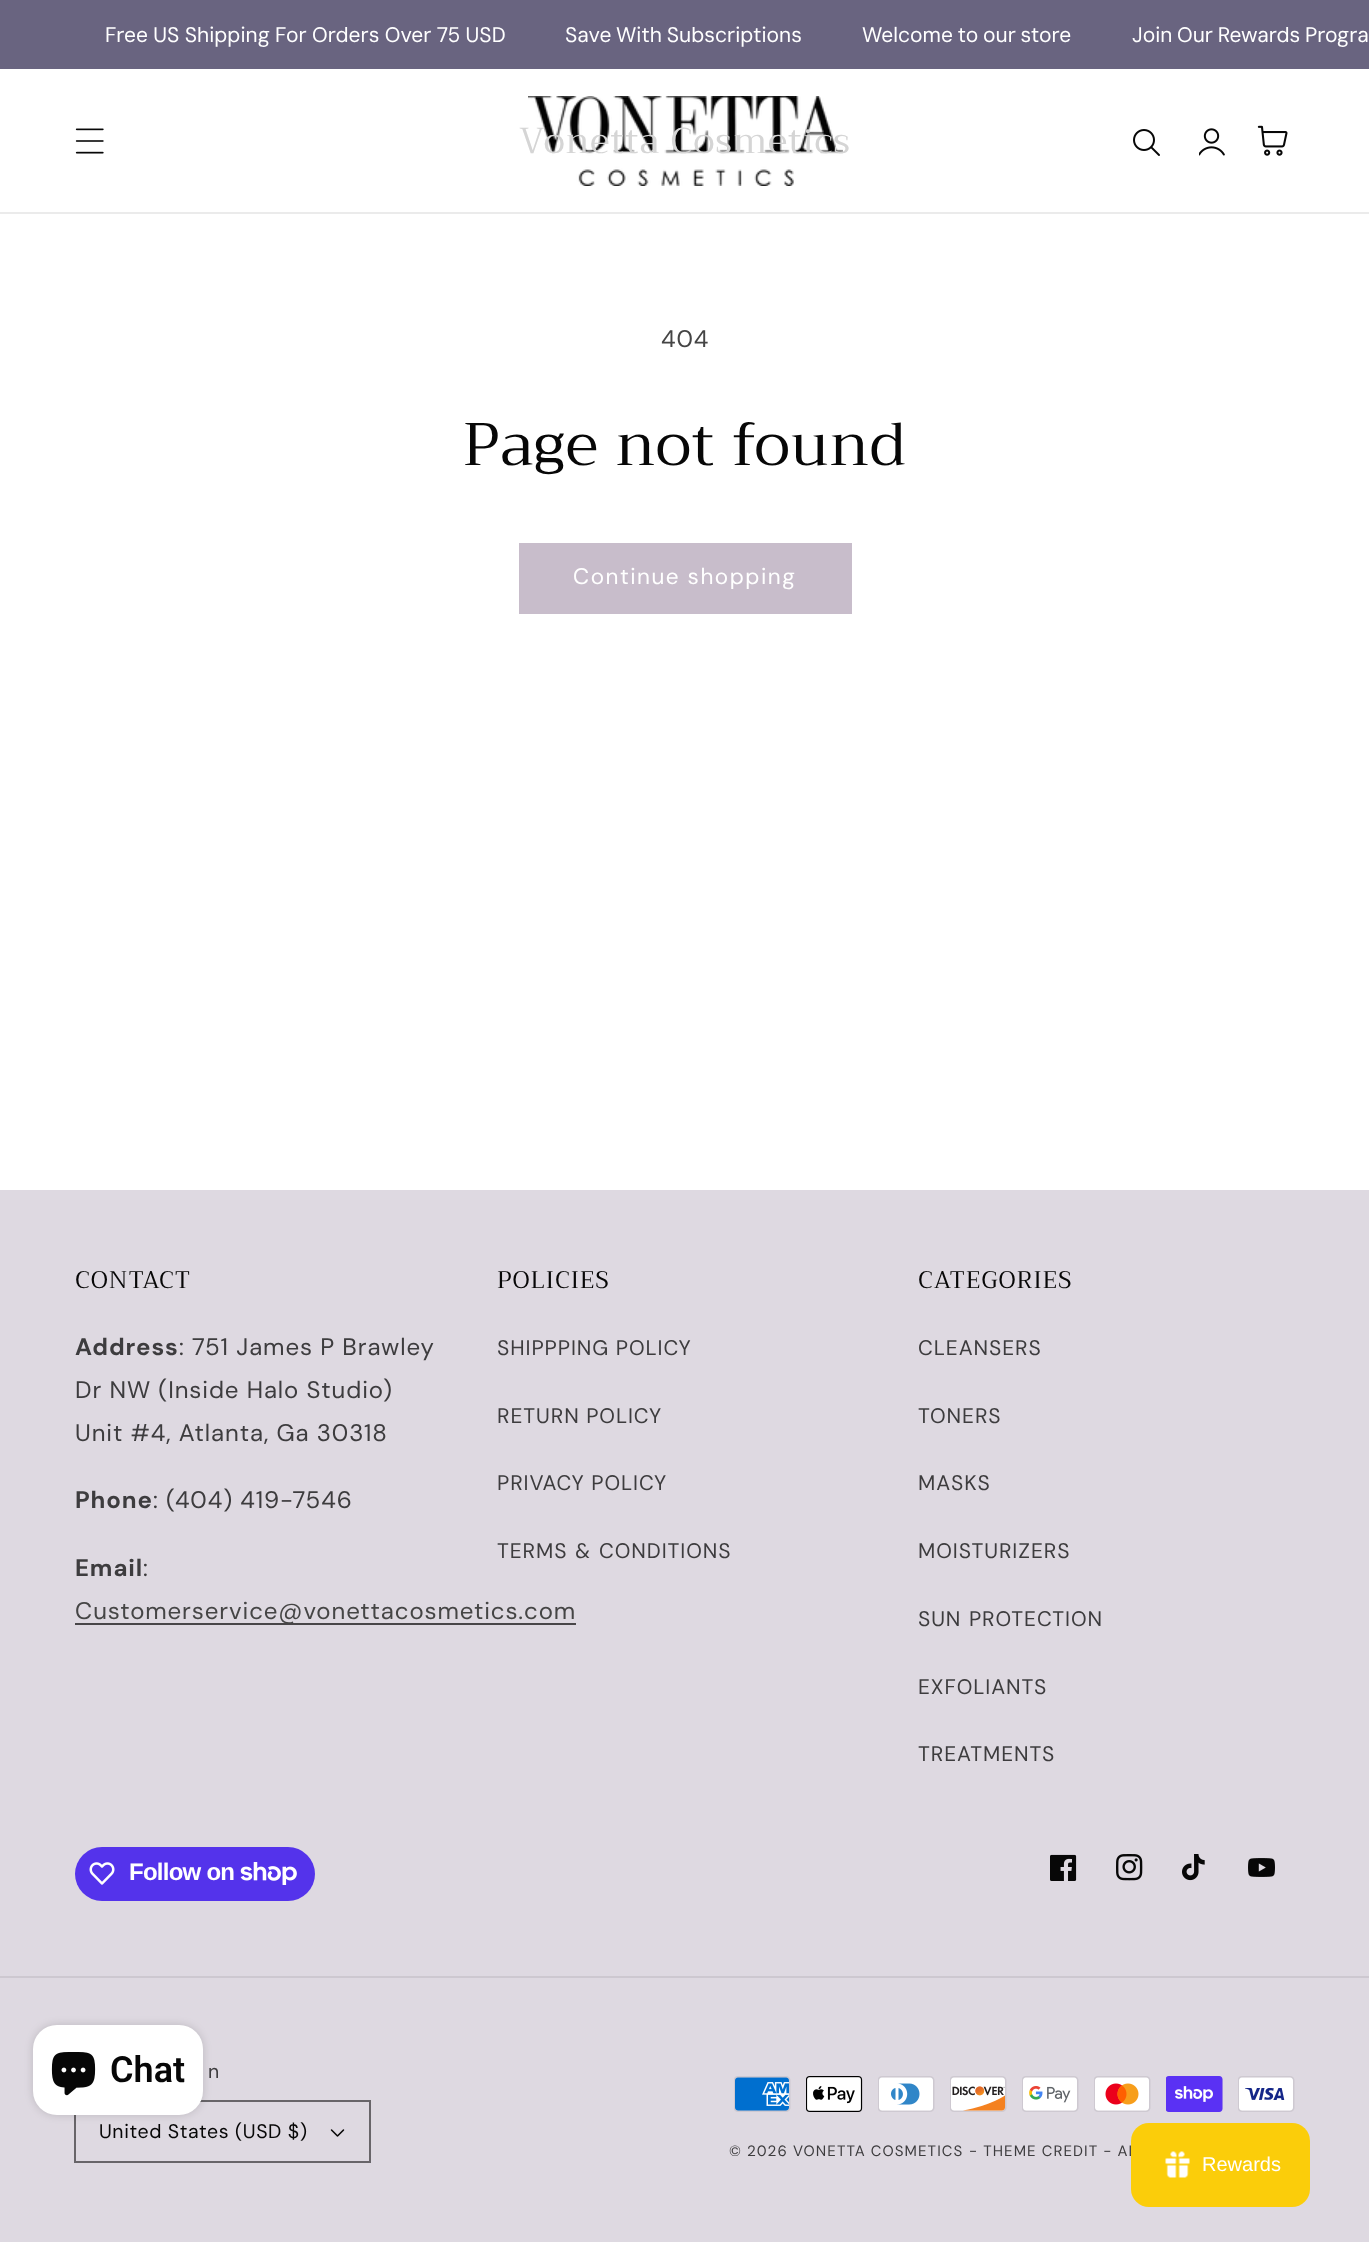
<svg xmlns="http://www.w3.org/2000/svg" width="1369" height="2242">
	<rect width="100%" height="100%" fill="#FFFFFF" />
	<rect x="0" y="0" width="1369" height="69" fill="#696480" />
	<g font-family="'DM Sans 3'" font-size="21" fill="#FFFFFF">
		<text x="105" y="42" word-spacing="-0.25">Free US Shipping For Orders Over 75 USD</text>
		<text x="565" y="42" word-spacing="-1">Save With Subscriptions</text>
		<text x="862" y="42" word-spacing="-1">Welcome to our store</text>
		<text x="1132" y="42" word-spacing="-1">Join Our Rewards Progra</text>
	</g>
	<rect x="0" y="212" width="1369" height="2" fill="#EBEBEB" />
	<image x="75" y="128" width="29" height="26" href="assets/img1.png" />
	<image x="528" y="96" width="315" height="90" href="assets/img2.png" />
	<text x="519" y="153" font-family="Trirong" font-size="36" letter-spacing="0.9" fill="#D5D5D5">Vonetta Cosmetics</text>
	<image x="1133" y="129" width="27" height="27" href="assets/img3.png" />
	<image x="1199" y="128" width="26" height="28" href="assets/img4.png" />
	<image x="1257" y="125" width="31" height="31" href="assets/img5.png" />
	<text x="661" y="347" font-family="DM Sans" font-size="24" letter-spacing="0.9" fill="#454545">404</text>
	<text x="463" y="465" font-family="Trirong" font-size="60" letter-spacing="0.9" fill="#070707">Page not found</text>
	<rect x="520" y="544" width="331" height="69" fill="none" stroke="#C8BDCB" stroke-width="2" />
	<rect x="521" y="545" width="329" height="67" fill="#C8BDCB" />
	<text x="573" y="584" font-family="'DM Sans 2'" font-size="22.5" letter-spacing="1.5" fill="#FFFFFF">Continue shopping</text>
	<rect x="0" y="1190" width="1369" height="1052" fill="#DED9E1" />
	<text x="75" y="1288" font-family="Trirong" font-size="24" letter-spacing="0.9" fill="#070707">CONTACT</text>
	<text x="75" y="1355" font-family="DM Sans" font-size="24" font-weight="700" letter-spacing="0.9" fill="#3D3C3E">Address</text>
	<g font-family="DM Sans" font-size="24" letter-spacing="0.9" fill="#3D3C3E">
		<text x="179" y="1355">: 751 James P Brawley</text>
		<text x="75" y="1398">Dr NW (Inside Halo Studio)</text>
		<text x="75" y="1441">Unit #4, Atlanta, Ga 30318</text>
	</g>
	<text x="75" y="1508" font-family="DM Sans" font-size="24" font-weight="700" letter-spacing="0.9" fill="#3D3C3E">Phone</text>
	<text x="153" y="1508" font-family="DM Sans" font-size="24" letter-spacing="0.9" fill="#3D3C3E">: (404) 419-7546</text>
	<text x="75" y="1576" font-family="DM Sans" font-size="24" font-weight="700" letter-spacing="0.9" fill="#3D3C3E">Email</text>
	<text x="143" y="1576" font-family="DM Sans" font-size="24" letter-spacing="0.9" fill="#3D3C3E">:</text>
	<rect x="75" y="1623" width="501" height="2" fill="#484648" />
	<text x="75" y="1619" font-family="DM Sans" font-size="24" letter-spacing="0.9" fill="#454545">Customerservice@vonettacosmetics.com</text>
	<text x="497" y="1288" font-family="Trirong" font-size="24" letter-spacing="0.9" fill="#070707">POLICIES</text>
	<g font-family="'DM Sans 3'" font-size="21" letter-spacing="0.9" fill="#3D3C3E">
		<text x="497" y="1355">SHIPPPING POLICY</text>
		<text x="497" y="1423">RETURN POLICY</text>
		<text x="497" y="1490">PRIVACY POLICY</text>
		<text x="497" y="1558" word-spacing="1">TERMS &amp; CONDITIONS</text>
	</g>
	<text x="918" y="1288" font-family="Trirong" font-size="24" letter-spacing="0.9" fill="#070707">CATEGORIES</text>
	<g font-family="'DM Sans 3'" font-size="21" letter-spacing="0.9" fill="#3D3C3E">
		<text x="918" y="1355">CLEANSERS</text>
		<text x="918" y="1423">TONERS</text>
		<text x="918" y="1490">MASKS</text>
		<text x="918" y="1558">MOISTURIZERS</text>
		<text x="918" y="1626" word-spacing="1">SUN PROTECTION</text>
		<text x="918" y="1694">EXFOLIANTS</text>
		<text x="918" y="1761">TREATMENTS</text>
	</g>
	<rect x="75" y="1847" width="240" height="54" rx="27" fill="#5433EB" />
	<image x="89" y="1862" width="26" height="23" href="assets/img6.png" />
	<text x="129" y="1880" font-family="Liberation Sans" font-size="24" font-weight="700" letter-spacing="-0.75" fill="#FFFFFF">Follow on</text>
	<image x="240" y="1862" width="57" height="23" href="assets/img7.png" />
	<image x="1050" y="1854" width="27" height="27" href="assets/img8.png" />
	<image x="1116" y="1854" width="27" height="27" href="assets/img9.png" />
	<image x="1182" y="1854" width="23" height="27" href="assets/img10.png" />
	<image x="1248" y="1858" width="27" height="19" href="assets/img11.png" />
	<rect x="0" y="1976" width="1369" height="2" fill="#CDC8D0" />
	<text x="208" y="2078" font-family="'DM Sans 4'" font-size="19.5" letter-spacing="0.6" fill="#3D3C3E">n</text>
	<rect x="75" y="2101" width="295" height="61" fill="none" stroke="#686569" stroke-width="2" />
	<text x="99" y="2138" font-family="'DM Sans 4'" font-size="19.5" letter-spacing="0.6" fill="#070707">United States (USD $)</text>
	<image x="330" y="2129" width="15" height="8" href="assets/img12.png" />
	<image x="734" y="2076" width="57" height="36" href="assets/img13.png" />
	<image x="806" y="2076" width="57" height="36" href="assets/img14.png" />
	<image x="878" y="2076" width="57" height="36" href="assets/img15.png" />
	<image x="950" y="2076" width="57" height="36" href="assets/img16.png" />
	<image x="1022" y="2076" width="57" height="36" href="assets/img17.png" />
	<image x="1094" y="2076" width="57" height="36" href="assets/img18.png" />
	<image x="1166" y="2076" width="57" height="36" href="assets/img19.png" />
	<image x="1238" y="2076" width="57" height="36" href="assets/img20.png" />
	<g font-family="'DM Sans 3'" font-size="15" letter-spacing="1.05" fill="#3D3C3E">
		<text x="729" y="2156">© 2026 VONETTA COSMETICS</text>
		<text x="969" y="2156">- THEME CREDIT - AL</text>
	</g>
	<rect x="33" y="2025" width="170" height="90" rx="24" fill="#000000" fill-opacity="0.15" filter="blur(4px)" />
	<rect x="33" y="2025" width="170" height="90" rx="24" fill="#FFFFFF" />
	<image x="51" y="2052" width="45" height="44" href="assets/img21.png" />
	<text x="110" y="2082" font-family="Roboto" font-size="36" font-weight="600" fill="#070707">Chat</text>
	<rect x="1131" y="2123" width="179" height="84" rx="18" fill="#FBCD0A" />
	<image x="1165" y="2151" width="25" height="27" href="assets/img22.png" />
	<text x="1202" y="2171" font-family="Liberation Sans" font-size="20" fill="#FFFFFF">Rewards</text>
</svg>
